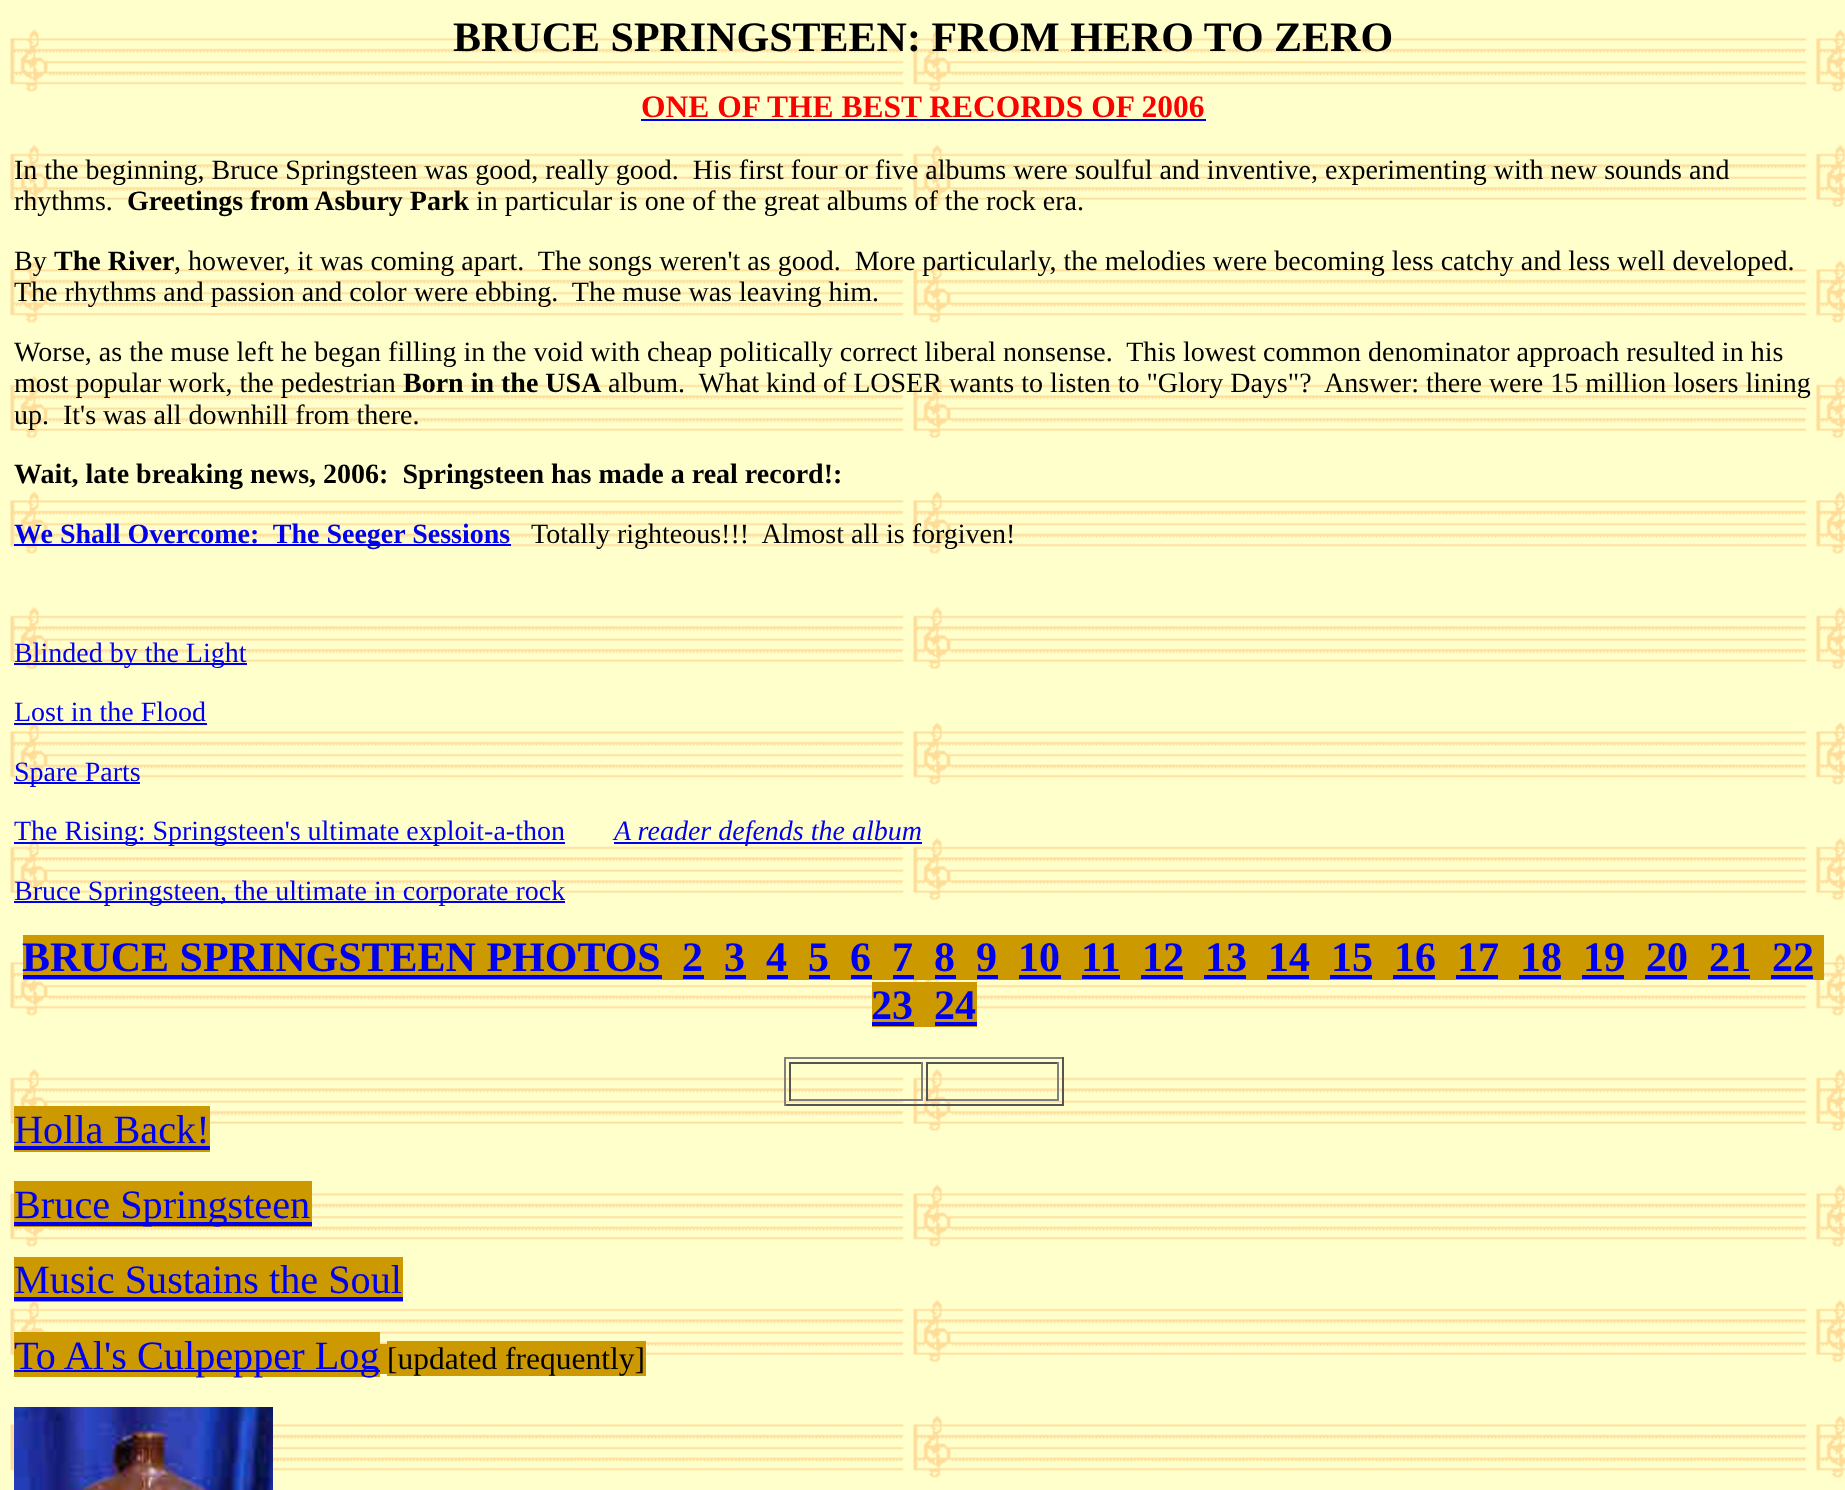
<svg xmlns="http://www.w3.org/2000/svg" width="1845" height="1490">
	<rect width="100%" height="100%" fill="#FFFFFF" />
	<image x="0" y="0" width="1845" height="1490" href="assets/img1.png" />
	<text x="453" y="51" font-family="Liberation Serif" font-size="42" font-weight="700" fill="#000000">BRUCE SPRINGSTEEN: FROM HERO TO ZERO</text>
	<text x="641" y="117" font-family="Liberation Serif" font-size="31.5" font-weight="700" fill="#FF0000">ONE OF THE BEST RECORDS OF 2006</text>
	<rect x="641" y="119" width="565" height="2" fill="#0000EE" />
	<g font-family="Liberation Serif" font-size="28" fill="#000000">
		<text x="14" y="179" xml:space="preserve">In the beginning, Bruce Springsteen was good, really good.  His first four or five albums were soulful and inventive, experimenting with new sounds and</text>
		<text x="14" y="210">rhythms.</text>
	</g>
	<text x="127" y="210" font-family="Liberation Serif" font-size="28" font-weight="700" fill="#000000">Greetings from Asbury Park</text>
	<g font-family="Liberation Serif" font-size="28" fill="#000000">
		<text x="476" y="210">in particular is one of the great albums of the rock era.</text>
		<text x="14" y="270">By</text>
	</g>
	<text x="54" y="270" font-family="Liberation Serif" font-size="28" font-weight="700" fill="#000000">The River</text>
	<g font-family="Liberation Serif" font-size="28" fill="#000000">
		<text x="174" y="270" xml:space="preserve">, however, it was coming apart.  The songs weren't as good.  More particularly, the melodies were becoming less catchy and less well developed.</text>
		<text x="14" y="301" xml:space="preserve">The rhythms and passion and color were ebbing.  The muse was leaving him.</text>
		<text x="14" y="361" xml:space="preserve">Worse, as the muse left he began filling in the void with cheap politically correct liberal nonsense.  This lowest common denominator approach resulted in his</text>
		<text x="14" y="392">most popular work, the pedestrian</text>
	</g>
	<text x="403" y="392" font-family="Liberation Serif" font-size="28" font-weight="700" fill="#000000">Born in the USA</text>
	<g font-family="Liberation Serif" font-size="28" fill="#000000">
		<text x="608" y="392" xml:space="preserve">album.  What kind of LOSER wants to listen to "Glory Days"?  Answer: there were 15 million losers lining</text>
		<text x="14" y="424" xml:space="preserve">up.  It's was all downhill from there.</text>
	</g>
	<text x="14" y="483" font-family="Liberation Serif" font-size="28" font-weight="700" fill="#000000" xml:space="preserve">Wait, late breaking news, 2006:  Springsteen has made a real record!:</text>
	<rect x="14" y="544" width="497" height="2" fill="#0000EE" />
	<text x="14" y="543" font-family="Liberation Serif" font-size="28" font-weight="700" fill="#0000EE" xml:space="preserve">We Shall Overcome:  The Seeger Sessions</text>
	<text x="531" y="543" font-family="Liberation Serif" font-size="28" fill="#000000" xml:space="preserve">Totally righteous!!!  Almost all is forgiven!</text>
	<rect x="14" y="663" width="233" height="2" fill="#0000EE" />
	<g font-family="Liberation Serif" font-size="28" fill="#0000EE">
		<text x="14" y="662">Blinded by the Light</text>
		<text x="14" y="721">Lost in the Flood</text>
	</g>
	<rect x="14" y="723" width="193" height="2" fill="#0000EE" />
	<rect x="14" y="782" width="126" height="2" fill="#0000EE" />
	<text x="14" y="781" font-family="Liberation Serif" font-size="28" fill="#0000EE">Spare Parts</text>
	<rect x="14" y="842" width="551" height="2" fill="#0000EE" />
	<text x="14" y="840" font-family="Liberation Serif" font-size="28" fill="#0000EE">The Rising: Springsteen's ultimate exploit-a-thon</text>
	<rect x="614" y="842" width="308" height="2" fill="#0000EE" />
	<text x="614" y="840" font-family="Liberation Serif" font-size="28" font-style="italic" fill="#0000EE">A reader defends the album</text>
	<rect x="14" y="901" width="551" height="2" fill="#0000EE" />
	<text x="14" y="900" font-family="Liberation Serif" font-size="28" fill="#0000EE">Bruce Springsteen, the ultimate in corporate rock</text>
	<rect x="23" y="935" width="1801" height="45" fill="#CC9900" />
	<text x="22" y="971" font-family="Liberation Serif" font-size="42" font-weight="700" fill="#0000EE">BRUCE SPRINGSTEEN PHOTOS</text>
	<rect x="23" y="975" width="639" height="4" fill="#0000EE" />
	<text x="682" y="971" font-family="Liberation Serif" font-size="42" font-weight="700" fill="#0000EE">2</text>
	<rect x="683" y="975" width="21" height="4" fill="#0000EE" />
	<text x="724" y="971" font-family="Liberation Serif" font-size="42" font-weight="700" fill="#0000EE">3</text>
	<rect x="725" y="975" width="21" height="4" fill="#0000EE" />
	<text x="766" y="971" font-family="Liberation Serif" font-size="42" font-weight="700" fill="#0000EE">4</text>
	<rect x="767" y="975" width="21" height="4" fill="#0000EE" />
	<text x="808" y="971" font-family="Liberation Serif" font-size="42" font-weight="700" fill="#0000EE">5</text>
	<rect x="809" y="975" width="21" height="4" fill="#0000EE" />
	<text x="850" y="971" font-family="Liberation Serif" font-size="42" font-weight="700" fill="#0000EE">6</text>
	<rect x="851" y="975" width="21" height="4" fill="#0000EE" />
	<text x="892" y="971" font-family="Liberation Serif" font-size="42" font-weight="700" fill="#0000EE">7</text>
	<rect x="893" y="975" width="21" height="4" fill="#0000EE" />
	<text x="934" y="971" font-family="Liberation Serif" font-size="42" font-weight="700" fill="#0000EE">8</text>
	<rect x="935" y="975" width="21" height="4" fill="#0000EE" />
	<text x="976" y="971" font-family="Liberation Serif" font-size="42" font-weight="700" fill="#0000EE">9</text>
	<rect x="977" y="975" width="21" height="4" fill="#0000EE" />
	<text x="1018" y="971" font-family="Liberation Serif" font-size="42" font-weight="700" fill="#0000EE">10</text>
	<rect x="1019" y="975" width="42" height="4" fill="#0000EE" />
	<text x="1081" y="971" font-family="Liberation Serif" font-size="42" font-weight="700" fill="#0000EE">11</text>
	<rect x="1082" y="975" width="38" height="4" fill="#0000EE" />
	<text x="1142" y="971" font-family="Liberation Serif" font-size="42" font-weight="700" fill="#0000EE">12</text>
	<rect x="1141" y="975" width="42" height="4" fill="#0000EE" />
	<text x="1205" y="971" font-family="Liberation Serif" font-size="42" font-weight="700" fill="#0000EE">13</text>
	<rect x="1204" y="975" width="42" height="4" fill="#0000EE" />
	<text x="1268" y="971" font-family="Liberation Serif" font-size="42" font-weight="700" fill="#0000EE">14</text>
	<rect x="1267" y="975" width="42" height="4" fill="#0000EE" />
	<text x="1331" y="971" font-family="Liberation Serif" font-size="42" font-weight="700" fill="#0000EE">15</text>
	<rect x="1330" y="975" width="42" height="4" fill="#0000EE" />
	<text x="1394" y="971" font-family="Liberation Serif" font-size="42" font-weight="700" fill="#0000EE">16</text>
	<rect x="1393" y="975" width="42" height="4" fill="#0000EE" />
	<text x="1457" y="971" font-family="Liberation Serif" font-size="42" font-weight="700" fill="#0000EE">17</text>
	<rect x="1456" y="975" width="42" height="4" fill="#0000EE" />
	<text x="1520" y="971" font-family="Liberation Serif" font-size="42" font-weight="700" fill="#0000EE">18</text>
	<rect x="1519" y="975" width="42" height="4" fill="#0000EE" />
	<text x="1583" y="971" font-family="Liberation Serif" font-size="42" font-weight="700" fill="#0000EE">19</text>
	<rect x="1582" y="975" width="42" height="4" fill="#0000EE" />
	<text x="1646" y="971" font-family="Liberation Serif" font-size="42" font-weight="700" fill="#0000EE">20</text>
	<rect x="1645" y="975" width="42" height="4" fill="#0000EE" />
	<text x="1709" y="971" font-family="Liberation Serif" font-size="42" font-weight="700" fill="#0000EE">21</text>
	<rect x="1708" y="975" width="42" height="4" fill="#0000EE" />
	<text x="1772" y="971" font-family="Liberation Serif" font-size="42" font-weight="700" fill="#0000EE">22</text>
	<rect x="1771" y="975" width="42" height="4" fill="#0000EE" />
	<rect x="872" y="982" width="105" height="45" fill="#CC9900" />
	<text x="871" y="1019" font-family="Liberation Serif" font-size="42" font-weight="700" fill="#0000EE">23</text>
	<rect x="872" y="1022" width="42" height="4" fill="#0000EE" />
	<text x="934" y="1019" font-family="Liberation Serif" font-size="42" font-weight="700" fill="#0000EE">24</text>
	<rect x="935" y="1022" width="42" height="4" fill="#0000EE" />
	<rect x="784" y="1057" width="280" height="2" fill="#808080" />
	<rect x="1062" y="1057" width="2" height="49" fill="#555555" />
	<rect x="784" y="1104" width="280" height="2" fill="#555555" />
	<rect x="784" y="1057" width="2" height="49" fill="#808080" />
	<rect x="789" y="1062" width="133" height="2" fill="#555555" />
	<rect x="921" y="1062" width="2" height="39" fill="#808080" />
	<rect x="789" y="1099" width="133" height="2" fill="#808080" />
	<rect x="789" y="1062" width="2" height="39" fill="#555555" />
	<rect x="926" y="1062" width="133" height="2" fill="#555555" />
	<rect x="1057" y="1062" width="2" height="39" fill="#808080" />
	<rect x="926" y="1099" width="133" height="2" fill="#808080" />
	<rect x="926" y="1062" width="2" height="39" fill="#555555" />
	<rect x="14" y="1106" width="196" height="46" fill="#CC9900" />
	<text x="14" y="1143" font-family="Liberation Serif" font-size="40.25" fill="#0000EE">Holla Back!</text>
	<rect x="14" y="1146" width="196" height="4" fill="#0000EE" />
	<rect x="14" y="1181" width="298" height="46" fill="#CC9900" />
	<rect x="14" y="1222" width="298" height="4" fill="#0000EE" />
	<text x="14" y="1218" font-family="Liberation Serif" font-size="40.25" fill="#0000EE">Bruce Springsteen</text>
	<rect x="14" y="1257" width="389" height="45" fill="#CC9900" />
	<text x="14" y="1293" font-family="Liberation Serif" font-size="40.25" fill="#0000EE">Music Sustains the Soul</text>
	<rect x="14" y="1297" width="389" height="4" fill="#0000EE" />
	<rect x="14" y="1332" width="366" height="45" fill="#CC9900" />
	<rect x="14" y="1370" width="366" height="2" fill="#0000EE" />
	<text x="14" y="1369" font-family="Liberation Serif" font-size="40.25" fill="#0000EE">To Al's Culpepper Log</text>
	<rect x="380" y="1344" width="7" height="30" fill="#CC9900" />
	<rect x="387" y="1341" width="259" height="35" fill="#CC9900" />
	<text x="387" y="1369" font-family="Liberation Serif" font-size="31.5" fill="#000000">[updated frequently]</text>
	<image x="14" y="1407" width="259" height="83" href="assets/img2.png" />
</svg>
